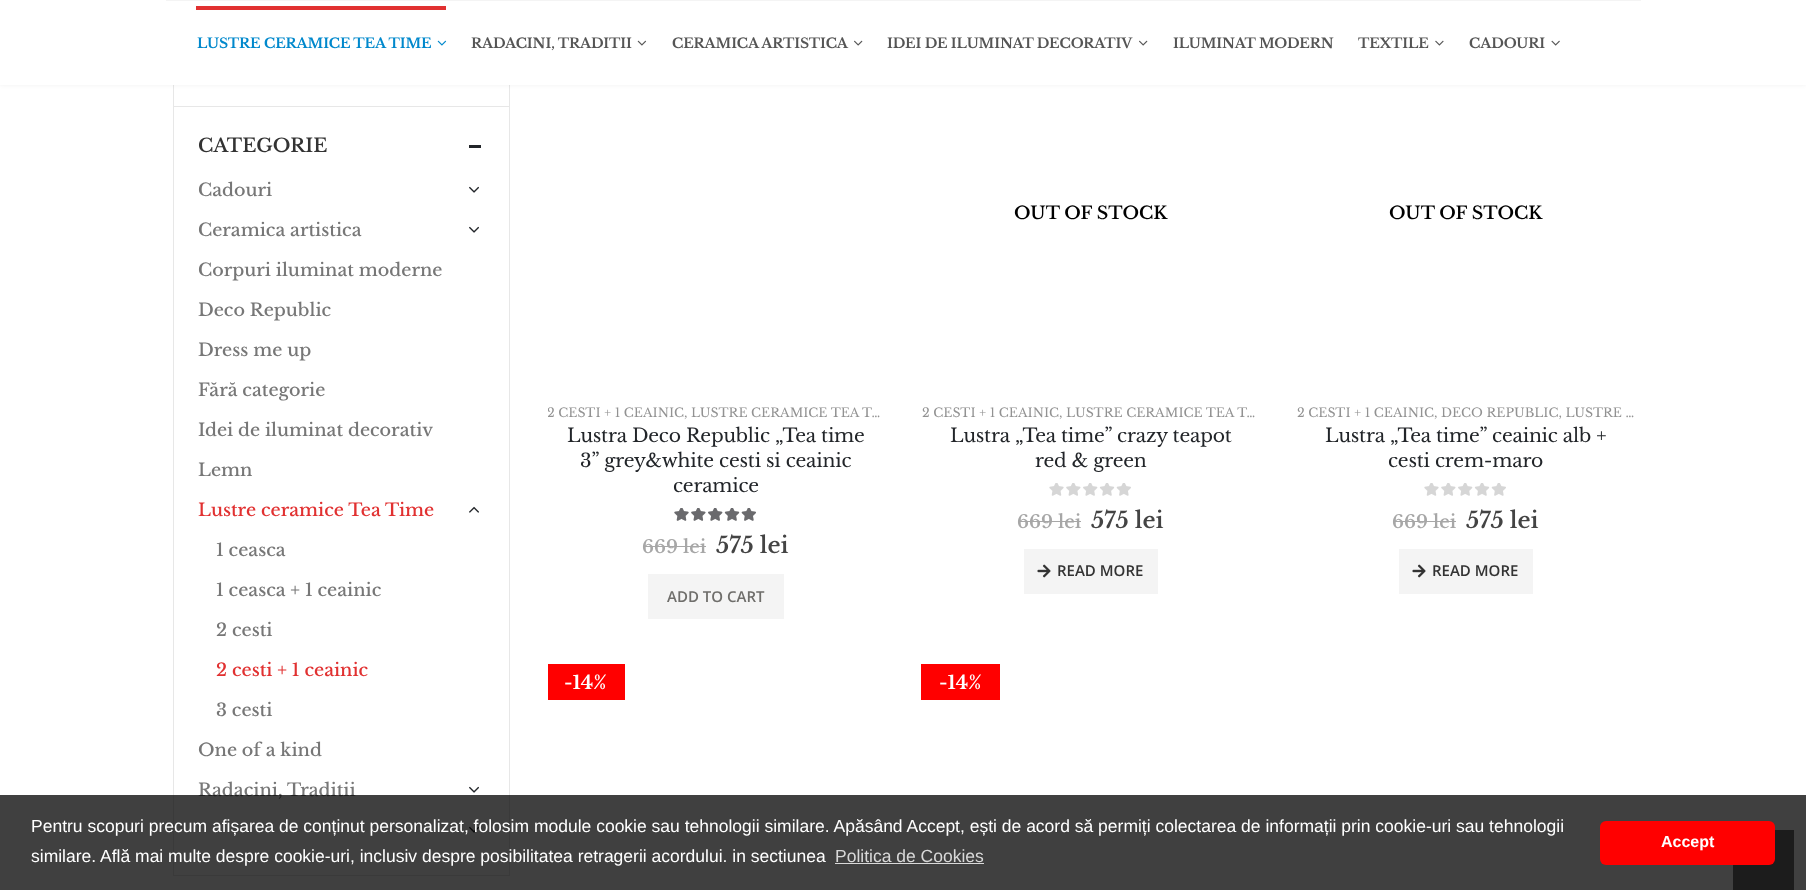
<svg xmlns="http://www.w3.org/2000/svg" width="1806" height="890">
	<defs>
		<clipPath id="clip1"><rect x="548" y="401" width="336" height="22" /></clipPath>
	</defs>
	<rect width="100%" height="100%" fill="#FFFFFF" />
	<rect x="173.5" y="-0.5" width="336" height="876" fill="none" stroke="#E7E7E7" />
	<rect x="0" y="0" width="1806" height="85" fill="#000000" fill-opacity="0.06" filter="blur(2px)" />
	<rect x="0" y="0" width="1806" height="85" fill="#FFFFFF" />
	<rect x="166" y="0" width="1475" height="1" fill="#F4F4F4" />
	<rect x="196" y="6" width="250" height="4" fill="#E13131" />
	<text x="197" y="48" font-family="Libre Baskerville" font-size="13.75" font-weight="700" letter-spacing="-0.15" fill="#0088CC">LUSTRE CERAMICE TEA TIME</text>
	<image x="437" y="40" width="10" height="6" href="assets/img1.png" />
	<text x="471" y="48" font-family="Libre Baskerville" font-size="13.75" font-weight="700" letter-spacing="-0.15" fill="#555555">RADACINI, TRADITII</text>
	<image x="637" y="40" width="10" height="6" href="assets/img2.png" />
	<text x="672" y="48" font-family="Libre Baskerville" font-size="13.75" font-weight="700" letter-spacing="-0.15" fill="#555555">CERAMICA ARTISTICA</text>
	<image x="854" y="40" width="9" height="6" href="assets/img3.png" />
	<text x="887" y="48" font-family="Libre Baskerville" font-size="13.75" font-weight="700" letter-spacing="-0.15" fill="#555555">IDEI DE ILUMINAT DECORATIV</text>
	<image x="1139" y="40" width="9" height="6" href="assets/img3.png" />
	<g font-family="Libre Baskerville" font-size="13.75" font-weight="700" letter-spacing="-0.15" fill="#555555">
		<text x="1173" y="48">ILUMINAT MODERN</text>
		<text x="1358" y="48">TEXTILE</text>
	</g>
	<image x="1435" y="40" width="9" height="6" href="assets/img4.png" />
	<text x="1469" y="48" font-family="Libre Baskerville" font-size="13.75" font-weight="700" letter-spacing="-0.15" fill="#555555">CADOURI</text>
	<image x="1551" y="40" width="9" height="6" href="assets/img5.png" />
	<rect x="174" y="106" width="335" height="1" fill="#E7E7E7" />
	<text x="198" y="152" font-family="Libre Baskerville" font-size="18.75" font-weight="600" fill="#333333">CATEGORIE</text>
	<rect x="469" y="145" width="12" height="3" fill="#222529" />
	<text x="198" y="196" font-family="Libre Baskerville" font-size="17.5" font-weight="500" fill="#777777">Cadouri</text>
	<image x="469" y="186" width="10" height="7" href="assets/img6.png" />
	<text x="198" y="236" font-family="Libre Baskerville" font-size="17.5" font-weight="500" fill="#777777">Ceramica artistica</text>
	<image x="469" y="226" width="10" height="7" href="assets/img6.png" />
	<g font-family="Libre Baskerville" font-size="17.5" font-weight="500" fill="#777777">
		<text x="198" y="276">Corpuri iluminat moderne</text>
		<text x="198" y="316">Deco Republic</text>
		<text x="198" y="356">Dress me up</text>
		<text x="198" y="396">Fără categorie</text>
		<text x="198" y="436">Idei de iluminat decorativ</text>
		<text x="198" y="476">Lemn</text>
	</g>
	<text x="198" y="516" font-family="Libre Baskerville" font-size="17.5" font-weight="500" fill="#E13131">Lustre ceramice Tea Time</text>
	<image x="469" y="506" width="10" height="7" href="assets/img7.png" />
	<g font-family="Libre Baskerville" font-size="17.5" font-weight="500" fill="#777777">
		<text x="216" y="556">1 ceasca</text>
		<text x="216" y="596">1 ceasca + 1 ceainic</text>
		<text x="216" y="636">2 cesti</text>
	</g>
	<text x="216" y="676" font-family="Libre Baskerville" font-size="17.5" font-weight="500" fill="#E13131">2 cesti + 1 ceainic</text>
	<g font-family="Libre Baskerville" font-size="17.5" font-weight="500" fill="#777777">
		<text x="216" y="716">3 cesti</text>
		<text x="198" y="756">One of a kind</text>
		<text x="198" y="796">Radacini, Traditii</text>
	</g>
	<image x="469" y="786" width="10" height="7" href="assets/img6.png" />
	<image x="469" y="826" width="10" height="7" href="assets/img6.png" />
	<g clip-path="url(#clip1)">
		<text x="547" y="417" font-family="Libre Baskerville" font-size="12.5" fill="#929292">2 CESTI + 1 CEAINIC</text>
	</g>
	<text x="684" y="417" font-family="Libre Baskerville" font-size="12.5" fill="#929292">, LUSTRE CERAMICE TEA T…</text>
	<g font-family="Libre Baskerville" font-size="18.75" letter-spacing="-0.2" fill="#222529">
		<text x="567" y="442">Lustra Deco Republic „Tea time</text>
		<text x="580" y="467">3” grey&amp;white cesti si ceainic</text>
		<text x="673" y="492">ceramice</text>
	</g>
	<image x="674" y="508" width="82" height="13" href="assets/img8.png" />
	<image x="674" y="508" width="82" height="13" href="assets/img9.png" />
	<text x="642" y="553" font-family="Libre Baskerville" font-size="18" font-weight="600" fill="#A7A7A7">669</text>
	<rect x="643" y="546" width="41" height="1" fill="#A7A7A7" />
	<text x="683" y="553" font-family="Libre Baskerville" font-size="18" font-weight="600" fill="#A7A7A7">lei</text>
	<rect x="684" y="546" width="22" height="1" fill="#A7A7A7" />
	<text x="716" y="553" font-family="Libre Baskerville" font-size="22.5" font-weight="600" fill="#444444">575 lei</text>
	<rect x="648" y="574" width="136" height="45" fill="#F4F4F4" />
	<text x="667" y="602" font-family="Open Sans" font-size="15" font-weight="600" fill="#6F6E6B">ADD TO CART</text>
	<text x="1014" y="219" font-family="Libre Baskerville" font-size="17.5" font-weight="600" fill="#000000">OUT OF STOCK</text>
	<text x="922" y="417" font-family="Libre Baskerville" font-size="12.5" fill="#929292">2 CESTI + 1 CEAINIC, LUSTRE CERAMICE TEA T…</text>
	<g font-family="Libre Baskerville" font-size="18.75" letter-spacing="-0.2" fill="#222529">
		<text x="950" y="442">Lustra „Tea time” crazy teapot</text>
		<text x="1035" y="467">red &amp; green</text>
	</g>
	<image x="1049" y="483" width="82" height="13" href="assets/img8.png" />
	<text x="1017" y="528" font-family="Libre Baskerville" font-size="18" font-weight="600" fill="#A7A7A7">669</text>
	<rect x="1018" y="521" width="41" height="1" fill="#A7A7A7" />
	<text x="1058" y="528" font-family="Libre Baskerville" font-size="18" font-weight="600" fill="#A7A7A7">lei</text>
	<rect x="1059" y="521" width="22" height="1" fill="#A7A7A7" />
	<text x="1091" y="528" font-family="Libre Baskerville" font-size="22.5" font-weight="600" fill="#444444">575 lei</text>
	<rect x="1024" y="549" width="134" height="45" fill="#F4F4F4" />
	<image x="1037" y="564" width="14" height="14" href="assets/img10.png" />
	<text x="1057" y="576" font-family="Open Sans" font-size="15" font-weight="600" fill="#333333">READ MORE</text>
	<text x="1389" y="219" font-family="Libre Baskerville" font-size="17.5" font-weight="600" fill="#000000">OUT OF STOCK</text>
	<text x="1297" y="417" font-family="Libre Baskerville" font-size="12.5" fill="#929292">2 CESTI + 1 CEAINIC, DECO REPUBLIC, LUSTRE …</text>
	<g font-family="Libre Baskerville" font-size="18.75" letter-spacing="-0.2" fill="#222529">
		<text x="1325" y="442">Lustra „Tea time” ceainic alb +</text>
		<text x="1388" y="467">cesti crem-maro</text>
	</g>
	<image x="1424" y="483" width="82" height="13" href="assets/img8.png" />
	<text x="1392" y="528" font-family="Libre Baskerville" font-size="18" font-weight="600" fill="#A7A7A7">669</text>
	<rect x="1393" y="521" width="41" height="1" fill="#A7A7A7" />
	<text x="1433" y="528" font-family="Libre Baskerville" font-size="18" font-weight="600" fill="#A7A7A7">lei</text>
	<rect x="1434" y="521" width="22" height="1" fill="#A7A7A7" />
	<text x="1466" y="528" font-family="Libre Baskerville" font-size="22.5" font-weight="600" fill="#444444">575 lei</text>
	<rect x="1399" y="549" width="134" height="45" fill="#F4F4F4" />
	<image x="1412" y="564" width="14" height="14" href="assets/img10.png" />
	<text x="1432" y="576" font-family="Open Sans" font-size="15" font-weight="600" fill="#333333">READ MORE</text>
	<rect x="548" y="664" width="77" height="36" fill="#FF0000" />
	<text x="564" y="689" font-family="Libre Baskerville" font-size="18.75" font-weight="700" fill="#FFFFFF">-14%</text>
	<rect x="921" y="664" width="79" height="36" fill="#FF0000" />
	<text x="939" y="689" font-family="Libre Baskerville" font-size="18.75" font-weight="700" fill="#FFFFFF">-14%</text>
	<rect x="1733" y="830" width="61" height="60" fill="#707070" />
	<image x="1769" y="864" width="1" height="1" href="assets/img11.png" />
	<rect x="0" y="795" width="1806" height="95" fill="#000000" fill-opacity="0.75" />
	<g font-family="Liberation Sans" font-size="17.5" fill="#FFFFFF">
		<text x="31" y="832">Pentru scopuri precum afișarea de conținut personalizat, folosim module cookie sau tehnologii similare. Apăsând Accept, ești de acord să permiți colectarea de informații prin cookie-uri sau tehnologii</text>
		<text x="31" y="862">similare. Află mai multe despre cookie-uri, inclusiv despre posibilitatea retragerii acordului. in sectiunea</text>
	</g>
	<text x="835" y="862" font-family="Liberation Sans" font-size="17.5" fill="#D9D9D9">Politica de Cookies</text>
	<rect x="835" y="863" width="149" height="1" fill="#D9D9D9" />
	<rect x="1600" y="821" width="175" height="44" rx="6" fill="#FF0000" />
	<text x="1661" y="847" font-family="Liberation Sans" font-size="16" font-weight="700" fill="#FFFFFF">Accept</text>
</svg>
